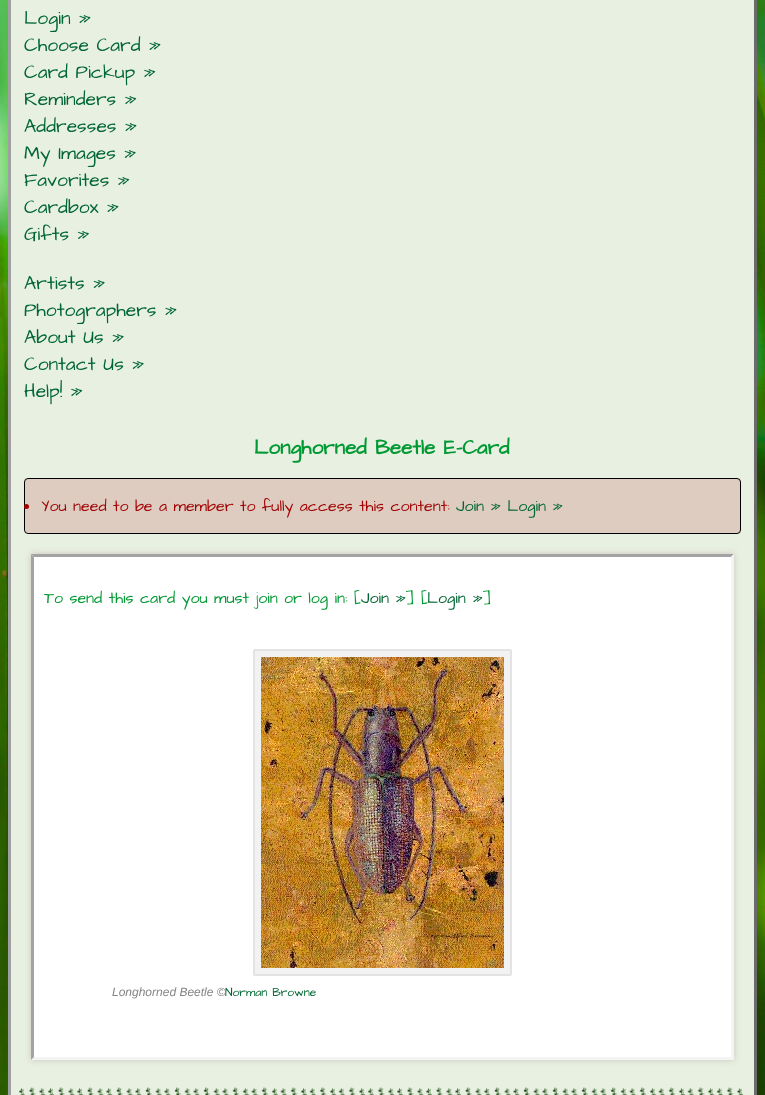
<svg xmlns="http://www.w3.org/2000/svg" width="765" height="1095">
	<rect width="100%" height="100%" fill="#FFFFFF" />
	<image x="0" y="0" width="765" height="1095" href="assets/img1.png" />
	<rect x="11" y="0" width="743" height="1095" fill="#E8F0E2" />
	<path d="M750-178C753.5-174.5 755.5-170 755.5-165V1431C755.5 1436 753.5 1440.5 750 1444C746.5 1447.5 742 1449.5 737 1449.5H28C23 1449.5 18.5 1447.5 15 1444" fill="none" stroke="#6B6B6B" stroke-width="3" />
	<path d="M15 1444C11.5 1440.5 9.5 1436 9.5 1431V-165C9.5-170 11.5-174.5 15-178C18.5-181.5 23-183.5 28-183.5H737C742-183.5 746.5-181.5 750-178" fill="none" stroke="#A0A0A0" stroke-width="3" />
	<g font-family="Architects Daughter" font-size="19.25" fill="#006633">
		<text x="24" y="24">Login »</text>
		<text x="24" y="51">Choose Card »</text>
		<text x="24" y="78">Card Pickup »</text>
		<text x="24" y="105">Reminders »</text>
		<text x="24" y="132">Addresses »</text>
		<text x="24" y="159">My Images »</text>
		<text x="24" y="186">Favorites »</text>
		<text x="24" y="213">Cardbox »</text>
		<text x="24" y="240">Gifts »</text>
		<text x="24" y="289">Artists »</text>
		<text x="24" y="316">Photographers »</text>
		<text x="24" y="343">About Us »</text>
		<text x="24" y="370">Contact Us »</text>
		<text x="24" y="397">Help! »</text>
	</g>
	<text x="254" y="454" font-family="Architects Daughter" font-size="20.75" font-weight="700" fill="#009933">Longhorned Beetle E-Card</text>
	<rect x="24.5" y="478.5" width="716" height="55" rx="3.5" fill="#DECCC0" stroke="#000000" />
	<circle cx="26.5" cy="506.5" r="2.5" fill="#9F0000" />
	<text x="41" y="511" font-family="Architects Daughter" font-size="16" fill="#9F0000">You need to be a member to fully access this content:</text>
	<text x="456" y="511" font-family="Architects Daughter" font-size="16" fill="#006633">Join » Login »</text>
	<rect x="31" y="554" width="703" height="506" fill="#C9C4B7" filter="blur(3px)" />
	<rect x="31" y="554" width="703" height="506" fill="#FFFFFF" />
	<path d="M31 554H734L731 557H34Z" fill="#A3A3A3" />
	<path d="M734 554V1060L731 1057V557Z" fill="#F4F4F4" />
	<path d="M734 1060H31L34 1057H731Z" fill="#F4F4F4" />
	<path d="M31 1060V554L34 557V1057Z" fill="#A3A3A3" />
	<text x="44" y="603" font-family="Architects Daughter" font-size="16" fill="#009933">To send this card you must join or log in: [</text>
	<text x="361" y="603" font-family="Architects Daughter" font-size="16" fill="#006633">Join »</text>
	<text x="406" y="603" font-family="Architects Daughter" font-size="16" fill="#009933">] [</text>
	<text x="427" y="603" font-family="Architects Daughter" font-size="16" fill="#006633">Login »</text>
	<text x="483" y="603" font-family="Architects Daughter" font-size="16" fill="#009933">]</text>
	<rect x="254" y="650" width="257" height="325" rx="1" fill="#F2F2F2" stroke="#E3E3E3" stroke-width="2" />
	<image x="261" y="657" width="243" height="311" href="assets/img2.png" />
	<text x="112" y="996" font-family="Liberation Sans" font-size="12" font-style="italic" fill="#848484">Longhorned Beetle ©</text>
	<text x="225" y="996" font-family="Architects Daughter" font-size="12" fill="#006633">Norman Browne</text>
	<image x="19" y="1087" width="725" height="8" href="assets/img3.png" />
</svg>
